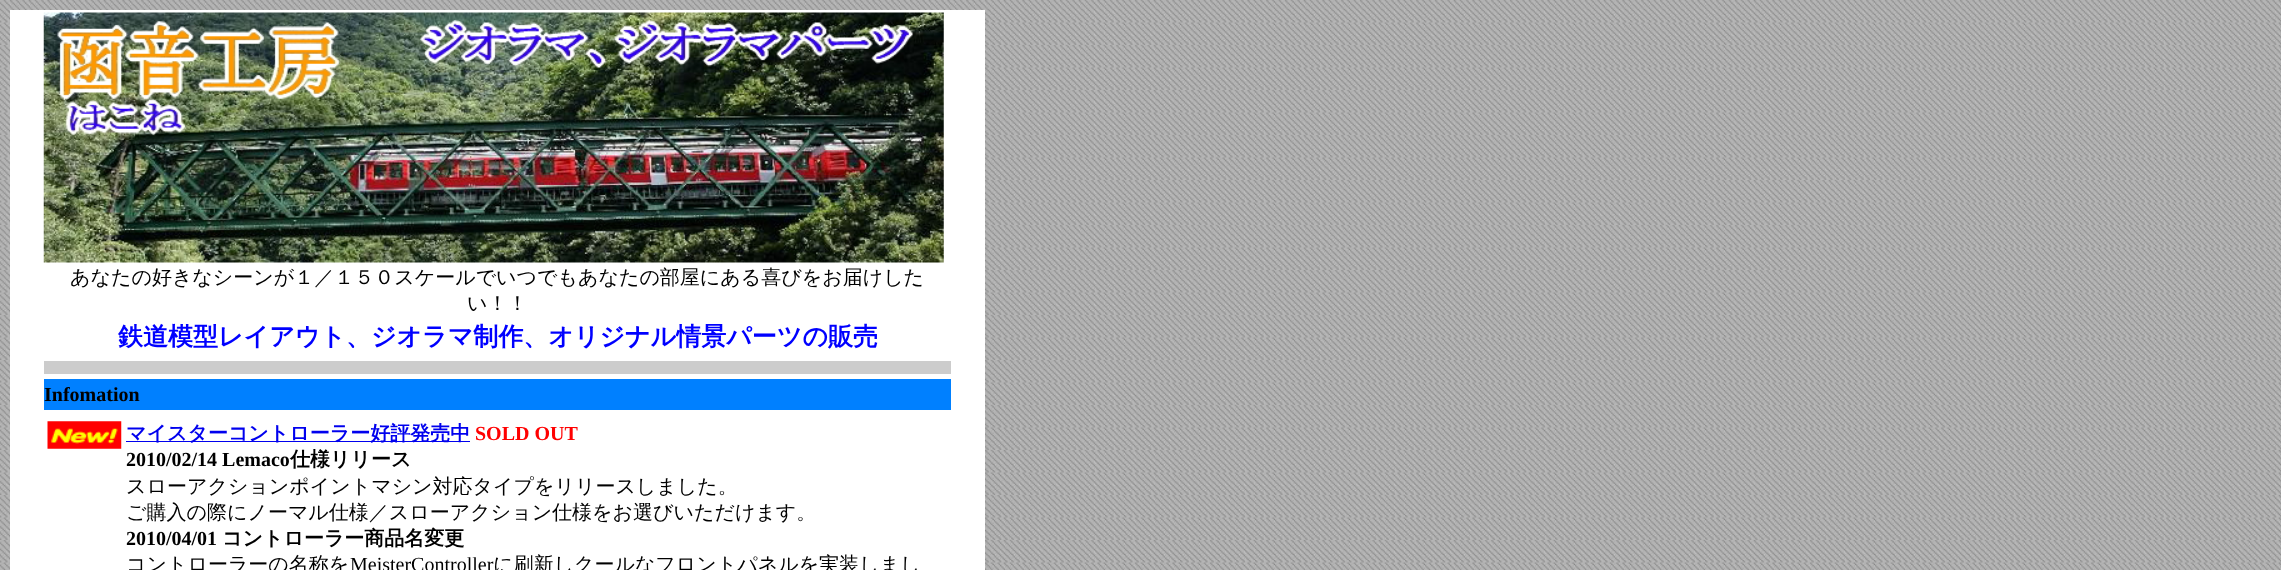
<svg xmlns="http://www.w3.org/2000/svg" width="2281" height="570">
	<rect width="100%" height="100%" fill="#FFFFFF" />
	<image x="0" y="0" width="2281" height="570" href="assets/img1.png" />
	<rect x="10" y="10" width="975" height="560" fill="#FFFFFF" />
	<image x="43" y="12" width="901" height="251" href="assets/img2.png" />
	<g font-family="WenQuanYi Zen Hei" font-size="20" font-weight="500" fill="#000000">
		<text x="70" y="284">あなたの好きなシーンが１／１５０スケールでいつでもあなたの部屋にある喜びをお届けした</text>
		<text x="467" y="310">い！！</text>
	</g>
	<text x="118" y="345" font-family="WenQuanYi Zen Hei" font-size="25" font-weight="700" fill="#0000FF">鉄道模型レイアウト、ジオラマ制作、オリジナル情景パーツの販売</text>
	<rect x="44" y="361" width="907" height="13" fill="#CCCCCC" />
	<rect x="44" y="379" width="907" height="31" fill="#0080FF" />
	<text x="44" y="401" font-family="Liberation Serif" font-size="20" font-weight="700" fill="#000000">Infomation</text>
	<image x="47" y="421" width="75" height="28" href="assets/img3.png" />
	<rect x="126" y="441" width="344" height="1" fill="#0000EE" />
	<text x="126" y="440" font-family="WenQuanYi Zen Hei" font-size="20" font-weight="700" fill="#0000EE">マイスターコントローラー好評発売中</text>
	<text x="475" y="440" font-family="Liberation Serif" font-size="20" font-weight="700" fill="#FF0000">SOLD OUT</text>
	<text x="126" y="466" font-family="Liberation Serif" font-size="20" font-weight="700" fill="#000000">2010/02/14 Lemaco</text>
	<text x="290" y="466" font-family="WenQuanYi Zen Hei" font-size="20" font-weight="700" fill="#000000">仕様リリース</text>
	<g font-family="WenQuanYi Zen Hei" font-size="20" font-weight="500" fill="#000000">
		<text x="126" y="493">スローアクションポイントマシン対応タイプをリリースしました。</text>
		<text x="126" y="519">ご購入の際にノーマル仕様／スローアクション仕様をお選びいただけます。</text>
	</g>
	<text x="126" y="545" font-family="Liberation Serif" font-size="20" font-weight="700" fill="#000000">2010/04/01</text>
	<text x="222" y="545" font-family="WenQuanYi Zen Hei" font-size="20" font-weight="700" fill="#000000">コントローラー商品名変更</text>
	<text x="126" y="571" font-family="WenQuanYi Zen Hei" font-size="20" font-weight="500" fill="#000000">コントローラーの名称を</text>
	<text x="350" y="571" font-family="Liberation Serif" font-size="20" fill="#000000">MeisterController</text>
	<text x="493" y="571" font-family="WenQuanYi Zen Hei" font-size="20" font-weight="500" fill="#000000">に刷新しクールなフロントパネルを実装しまし</text>
</svg>
